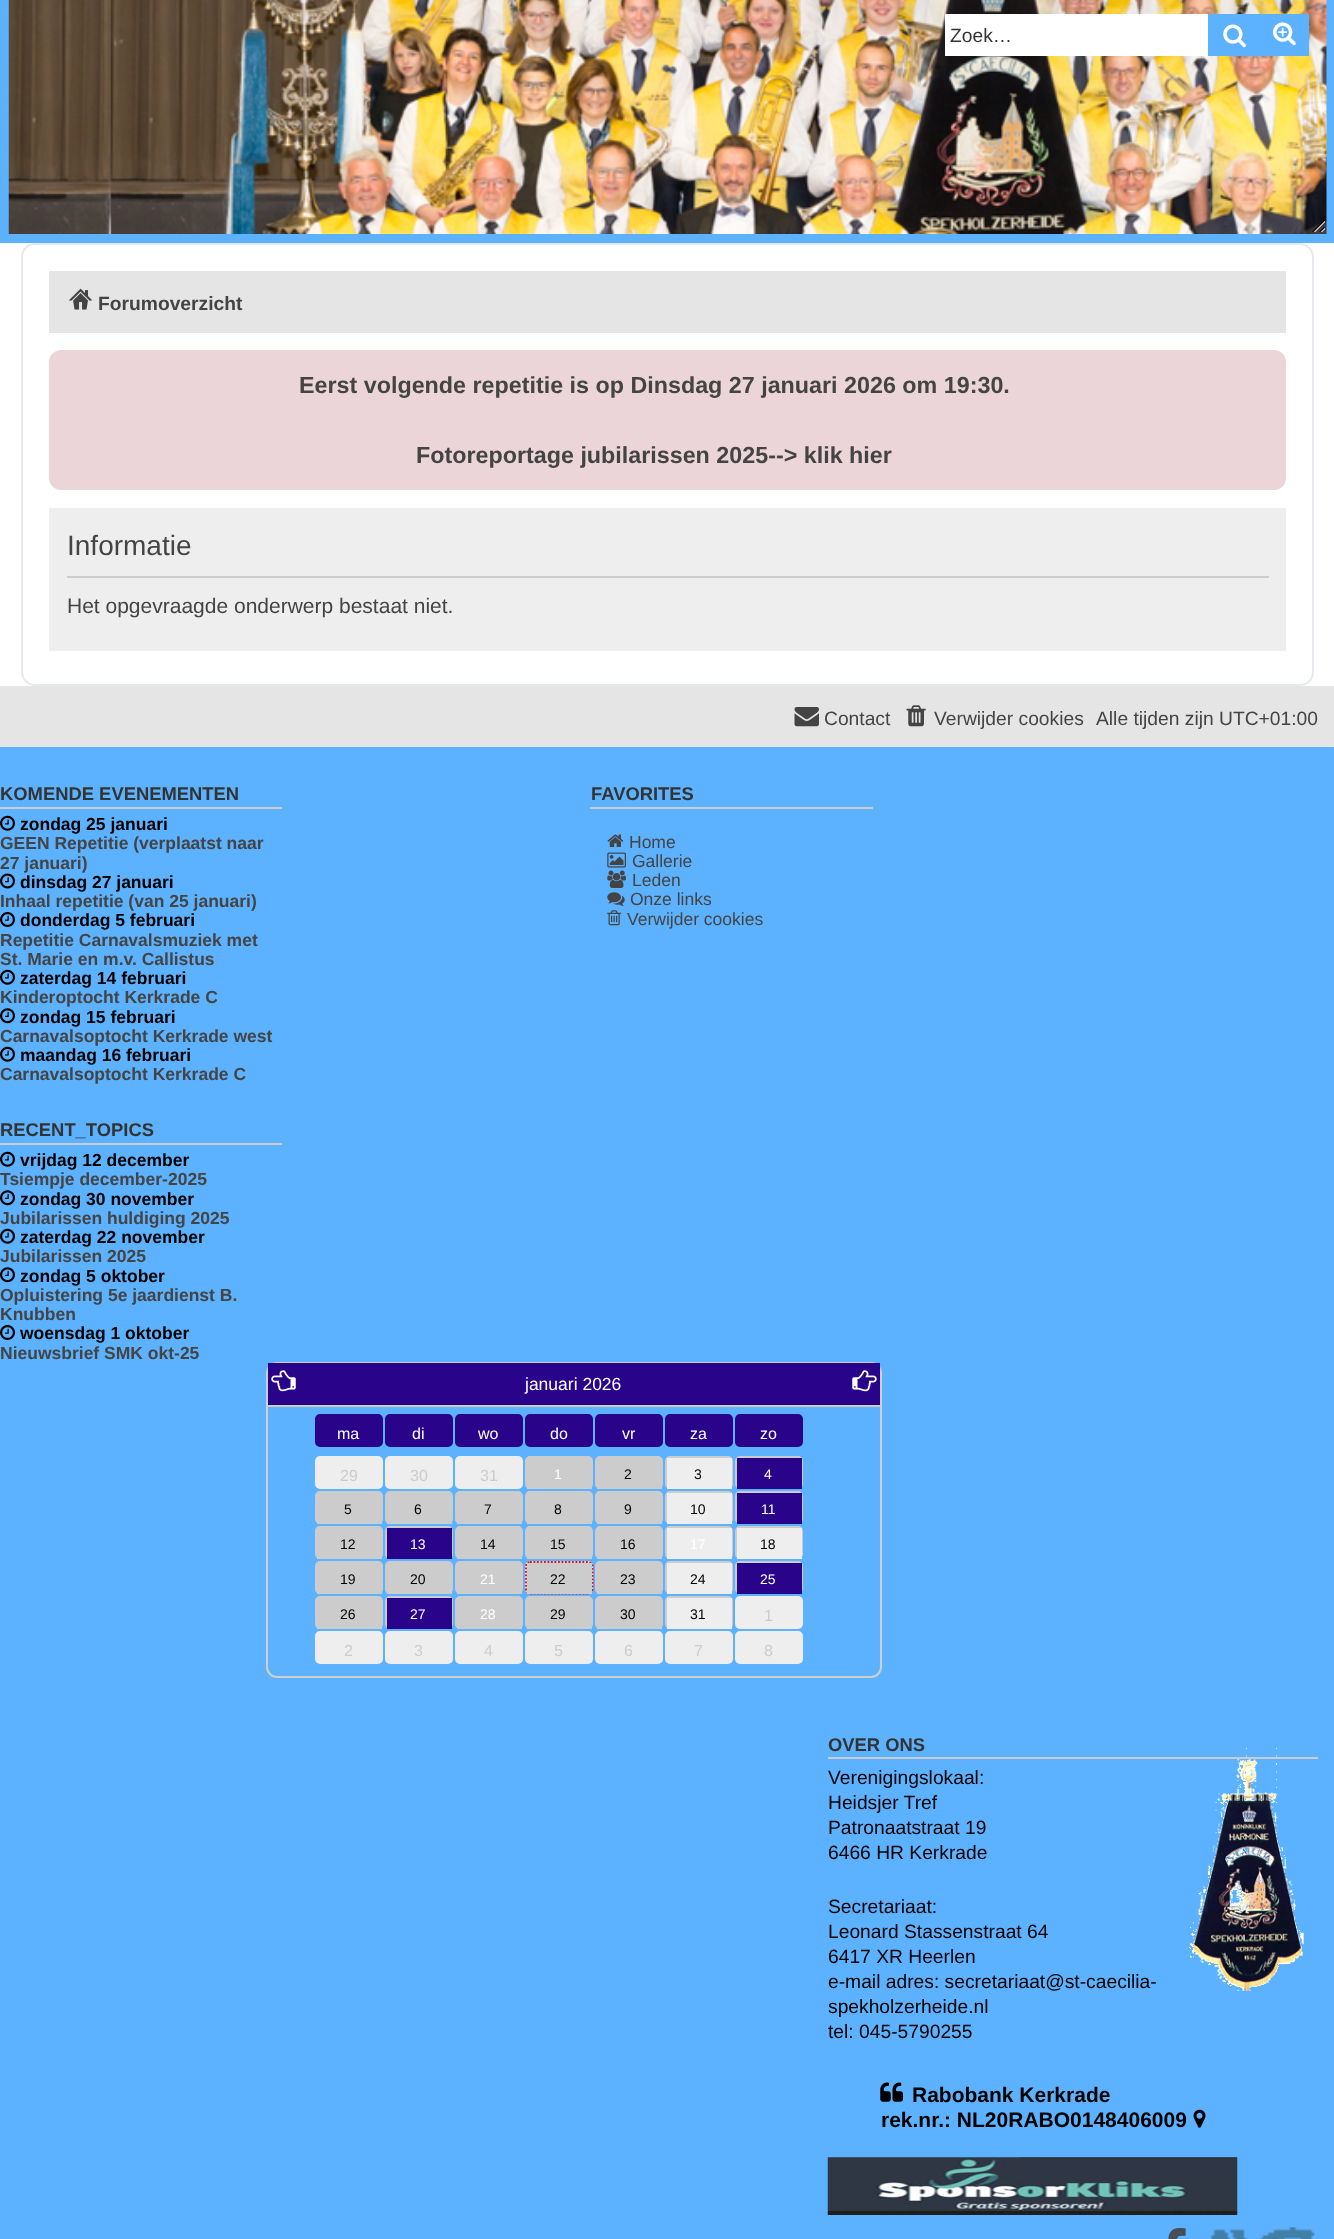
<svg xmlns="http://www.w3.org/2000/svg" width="1334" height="2239">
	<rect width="100%" height="100%" fill="#FFFFFF" />
	<rect x="0" y="0" width="1334" height="243" fill="#5DB2FF" />
	<image x="8" y="0" width="1319" height="234" href="assets/img1.png" />
	<rect x="1208" y="14" width="101" height="42" fill="#5DB2FF" />
	<image x="1223" y="24" width="23" height="24" href="assets/img2.png" />
	<rect x="945" y="14" width="263" height="42" fill="#FFFFFF" />
	<text x="950" y="42" font-family="Liberation Sans" font-size="19.25" fill="#333333">Zoek…</text>
	<image x="1273" y="22" width="23" height="24" href="assets/img3.png" />
	<rect x="22" y="244" width="1291" height="441" rx="13" fill="none" stroke="#E6E9ED" stroke-width="2" />
	<rect x="49" y="271" width="1237" height="62" fill="#E5E5E5" />
	<image x="68" y="288" width="25" height="22" href="assets/img4.png" />
	<text x="98" y="310" font-family="Liberation Sans" font-size="19.25" font-weight="700" fill="#444444">Forumoverzicht</text>
	<rect x="49" y="350" width="1237" height="140" rx="12" fill="#ECD5D8" />
	<g font-family="Liberation Sans" font-size="23.3" font-weight="700" fill="#444444">
		<text x="299" y="393">Eerst volgende repetitie is op Dinsdag 27 januari 2026 om 19:30.</text>
		<text x="416" y="463">Fotoreportage jubilarissen 2025--&gt; klik hier</text>
	</g>
	<rect x="49" y="508" width="1237" height="143" fill="#EEEEEE" />
	<rect x="67" y="576" width="1202" height="2" fill="#CCCCCC" />
	<text x="67" y="555" font-family="Liberation Sans" font-size="28" fill="#444444">Informatie</text>
	<text x="67" y="613" font-family="Liberation Sans" font-size="21" fill="#444444">Het opgevraagde onderwerp bestaat niet.</text>
	<rect x="0" y="686" width="1334" height="61" fill="#E5E5E5" />
	<image x="794" y="707" width="25" height="20" href="assets/img5.png" />
	<text x="824" y="725" font-family="Liberation Sans" font-size="19.25" fill="#444444">Contact</text>
	<image x="906" y="705" width="20" height="22" href="assets/img6.png" />
	<g font-family="Liberation Sans" font-size="19.25" fill="#444444">
		<text x="934" y="725">Verwijder cookies</text>
		<text x="1096" y="725">Alle tijden zijn UTC+01:00</text>
	</g>
	<rect x="0" y="747" width="1334" height="1492" fill="#5DB2FF" />
	<rect x="0" y="807" width="282" height="2" fill="#CCCCCC" />
	<text x="0" y="800" font-family="Liberation Sans" font-size="18.4" font-weight="700" fill="#333333">KOMENDE EVENEMENTEN</text>
	<image x="0" y="815" width="15" height="16" href="assets/img7.png" />
	<text x="20" y="830" font-family="Liberation Sans" font-size="17.5" font-weight="700" fill="#000000">zondag 25 januari</text>
	<g font-family="Liberation Sans" font-size="17.5" font-weight="700" fill="#444444">
		<text x="0" y="849">GEEN Repetitie (verplaatst naar</text>
		<text x="0" y="869">27 januari)</text>
	</g>
	<image x="0" y="873" width="15" height="16" href="assets/img8.png" />
	<text x="20" y="888" font-family="Liberation Sans" font-size="17.5" font-weight="700" fill="#000000">dinsdag 27 januari</text>
	<text x="0" y="907" font-family="Liberation Sans" font-size="17.5" font-weight="700" fill="#444444">Inhaal repetitie (van 25 januari)</text>
	<image x="0" y="912" width="15" height="15" href="assets/img9.png" />
	<text x="20" y="926" font-family="Liberation Sans" font-size="17.5" font-weight="700" fill="#000000">donderdag 5 februari</text>
	<g font-family="Liberation Sans" font-size="17.5" font-weight="700" fill="#444444">
		<text x="0" y="946">Repetitie Carnavalsmuziek met</text>
		<text x="0" y="965">St. Marie en m.v. Callistus</text>
	</g>
	<image x="0" y="969" width="15" height="16" href="assets/img7.png" />
	<text x="20" y="984" font-family="Liberation Sans" font-size="17.5" font-weight="700" fill="#000000">zaterdag 14 februari</text>
	<text x="0" y="1003" font-family="Liberation Sans" font-size="17.5" font-weight="700" fill="#444444">Kinderoptocht Kerkrade C</text>
	<image x="0" y="1008" width="15" height="16" href="assets/img10.png" />
	<text x="20" y="1023" font-family="Liberation Sans" font-size="17.5" font-weight="700" fill="#000000">zondag 15 februari</text>
	<text x="0" y="1042" font-family="Liberation Sans" font-size="17.5" font-weight="700" fill="#444444">Carnavalsoptocht Kerkrade west</text>
	<image x="0" y="1046" width="15" height="16" href="assets/img7.png" />
	<text x="20" y="1061" font-family="Liberation Sans" font-size="17.5" font-weight="700" fill="#000000">maandag 16 februari</text>
	<text x="0" y="1080" font-family="Liberation Sans" font-size="17.5" font-weight="700" fill="#444444">Carnavalsoptocht Kerkrade C</text>
	<rect x="0" y="1143" width="282" height="2" fill="#CCCCCC" />
	<text x="0" y="1136" font-family="Liberation Sans" font-size="18.4" font-weight="700" fill="#333333">RECENT_TOPICS</text>
	<image x="0" y="1151" width="15" height="16" href="assets/img7.png" />
	<text x="20" y="1166" font-family="Liberation Sans" font-size="17.5" font-weight="700" fill="#000000">vrijdag 12 december</text>
	<text x="0" y="1185" font-family="Liberation Sans" font-size="17.5" font-weight="700" fill="#444444">Tsiempje december-2025</text>
	<image x="0" y="1190" width="15" height="16" href="assets/img10.png" />
	<text x="20" y="1205" font-family="Liberation Sans" font-size="17.5" font-weight="700" fill="#000000">zondag 30 november</text>
	<text x="0" y="1224" font-family="Liberation Sans" font-size="17.5" font-weight="700" fill="#444444">Jubilarissen huldiging 2025</text>
	<image x="0" y="1228" width="15" height="16" href="assets/img7.png" />
	<text x="20" y="1243" font-family="Liberation Sans" font-size="17.5" font-weight="700" fill="#000000">zaterdag 22 november</text>
	<text x="0" y="1262" font-family="Liberation Sans" font-size="17.5" font-weight="700" fill="#444444">Jubilarissen 2025</text>
	<image x="0" y="1267" width="15" height="16" href="assets/img10.png" />
	<text x="20" y="1282" font-family="Liberation Sans" font-size="17.5" font-weight="700" fill="#000000">zondag 5 oktober</text>
	<g font-family="Liberation Sans" font-size="17.5" font-weight="700" fill="#444444">
		<text x="0" y="1301">Opluistering 5e jaardienst B.</text>
		<text x="0" y="1320">Knubben</text>
	</g>
	<image x="0" y="1325" width="15" height="15" href="assets/img9.png" />
	<text x="20" y="1339" font-family="Liberation Sans" font-size="17.5" font-weight="700" fill="#000000">woensdag 1 oktober</text>
	<text x="0" y="1359" font-family="Liberation Sans" font-size="17.5" font-weight="700" fill="#444444">Nieuwsbrief SMK okt-25</text>
	<rect x="590" y="807" width="283" height="2" fill="#CCCCCC" />
	<text x="591" y="800" font-family="Liberation Sans" font-size="18.4" font-weight="700" fill="#333333">FAVORITES</text>
	<image x="607" y="834" width="17" height="13" href="assets/img11.png" />
	<text x="629" y="848" font-family="Liberation Sans" font-size="17.5" fill="#444444">Home</text>
	<image x="607" y="852" width="19" height="16" href="assets/img12.png" />
	<text x="632" y="867" font-family="Liberation Sans" font-size="17.5" fill="#444444">Gallerie</text>
	<image x="607" y="870" width="19" height="18" href="assets/img13.png" />
	<text x="632" y="886" font-family="Liberation Sans" font-size="17.5" fill="#444444">Leden</text>
	<image x="607" y="892" width="18" height="14" href="assets/img14.png" />
	<text x="630" y="905" font-family="Liberation Sans" font-size="17.5" fill="#444444">Onze links</text>
	<image x="607" y="910" width="14" height="16" href="assets/img15.png" />
	<text x="627" y="925" font-family="Liberation Sans" font-size="17.5" fill="#444444">Verwijder cookies</text>
	<rect x="267" y="1363" width="614" height="314" rx="10" fill="none" stroke="#CFCFCF" stroke-width="2" />
	<rect x="268" y="1363" width="612" height="42" fill="#29038A" />
	<rect x="268" y="1405" width="612" height="2" fill="#CCCCCC" />
	<image x="271" y="1370" width="25" height="22" href="assets/img16.png" />
	<text x="525" y="1390" font-family="Liberation Sans" font-size="17.5" fill="#FFFFFF">januari 2026</text>
	<image x="852" y="1370" width="25" height="22" href="assets/img17.png" />
	<rect x="316" y="1415" width="66" height="31" rx="4" fill="#29038A" stroke="#29038A" stroke-width="2" />
	<text x="337" y="1439" font-family="Liberation Sans" font-size="16" fill="#FFFFFF">ma</text>
	<rect x="386" y="1415" width="66" height="31" rx="4" fill="#29038A" stroke="#29038A" stroke-width="2" />
	<text x="412" y="1439" font-family="Liberation Sans" font-size="16" fill="#FFFFFF">di</text>
	<rect x="456" y="1415" width="66" height="31" rx="4" fill="#29038A" stroke="#29038A" stroke-width="2" />
	<text x="478" y="1439" font-family="Liberation Sans" font-size="16" fill="#FFFFFF">wo</text>
	<rect x="526" y="1415" width="66" height="31" rx="4" fill="#29038A" stroke="#29038A" stroke-width="2" />
	<text x="550" y="1439" font-family="Liberation Sans" font-size="16" fill="#FFFFFF">do</text>
	<rect x="596" y="1415" width="66" height="31" rx="4" fill="#29038A" stroke="#29038A" stroke-width="2" />
	<text x="622" y="1439" font-family="Liberation Sans" font-size="16" fill="#FFFFFF">vr</text>
	<rect x="666" y="1415" width="66" height="31" rx="4" fill="#29038A" stroke="#29038A" stroke-width="2" />
	<text x="690" y="1439" font-family="Liberation Sans" font-size="16" fill="#FFFFFF">za</text>
	<rect x="736" y="1415" width="66" height="31" rx="4" fill="#29038A" stroke="#29038A" stroke-width="2" />
	<text x="760" y="1439" font-family="Liberation Sans" font-size="16" fill="#FFFFFF">zo</text>
	<rect x="316" y="1457" width="66" height="31" rx="4" fill="#EEEEEE" stroke="#EEEEEE" stroke-width="2" />
	<text x="340" y="1481" font-family="Liberation Sans" font-size="16" fill="#CCCCCC">29</text>
	<rect x="386" y="1457" width="66" height="31" rx="4" fill="#EEEEEE" stroke="#EEEEEE" stroke-width="2" />
	<text x="410" y="1481" font-family="Liberation Sans" font-size="16" fill="#CCCCCC">30</text>
	<rect x="456" y="1457" width="66" height="31" rx="4" fill="#EEEEEE" stroke="#EEEEEE" stroke-width="2" />
	<text x="480" y="1481" font-family="Liberation Sans" font-size="16" fill="#CCCCCC">31</text>
	<rect x="526" y="1457" width="66" height="31" rx="4" fill="none" stroke="#CCCCCC" stroke-width="2" />
	<rect x="527" y="1458" width="65" height="31" fill="#CCCCCC" />
	<text x="554" y="1479" font-family="Liberation Sans" font-size="14" fill="#FFFFFF">1</text>
	<rect x="596" y="1457" width="66" height="31" rx="4" fill="none" stroke="#CCCCCC" stroke-width="2" />
	<rect x="597" y="1458" width="65" height="31" fill="#CCCCCC" />
	<text x="624" y="1479" font-family="Liberation Sans" font-size="14" fill="#000000">2</text>
	<rect x="666" y="1457" width="66" height="31" rx="4" fill="none" stroke="#CCCCCC" stroke-width="2" />
	<rect x="667" y="1458" width="65" height="31" fill="#EEEEEE" />
	<text x="694" y="1479" font-family="Liberation Sans" font-size="14" fill="#000000">3</text>
	<rect x="736" y="1457" width="66" height="31" rx="4" fill="none" stroke="#CCCCCC" stroke-width="2" />
	<rect x="737" y="1458" width="65" height="31" fill="#29038A" />
	<text x="764" y="1479" font-family="Liberation Sans" font-size="14" fill="#FFFFFF">4</text>
	<rect x="316" y="1492" width="66" height="31" rx="4" fill="none" stroke="#CCCCCC" stroke-width="2" />
	<rect x="317" y="1493" width="65" height="31" fill="#CCCCCC" />
	<text x="344" y="1514" font-family="Liberation Sans" font-size="14" fill="#000000">5</text>
	<rect x="386" y="1492" width="66" height="31" rx="4" fill="none" stroke="#CCCCCC" stroke-width="2" />
	<rect x="387" y="1493" width="65" height="31" fill="#CCCCCC" />
	<text x="414" y="1514" font-family="Liberation Sans" font-size="14" fill="#000000">6</text>
	<rect x="456" y="1492" width="66" height="31" rx="4" fill="none" stroke="#CCCCCC" stroke-width="2" />
	<rect x="457" y="1493" width="65" height="31" fill="#CCCCCC" />
	<text x="484" y="1514" font-family="Liberation Sans" font-size="14" fill="#000000">7</text>
	<rect x="526" y="1492" width="66" height="31" rx="4" fill="none" stroke="#CCCCCC" stroke-width="2" />
	<rect x="527" y="1493" width="65" height="31" fill="#CCCCCC" />
	<text x="554" y="1514" font-family="Liberation Sans" font-size="14" fill="#000000">8</text>
	<rect x="596" y="1492" width="66" height="31" rx="4" fill="none" stroke="#CCCCCC" stroke-width="2" />
	<rect x="597" y="1493" width="65" height="31" fill="#CCCCCC" />
	<text x="624" y="1514" font-family="Liberation Sans" font-size="14" fill="#000000">9</text>
	<rect x="666" y="1492" width="66" height="31" rx="4" fill="none" stroke="#CCCCCC" stroke-width="2" />
	<rect x="667" y="1493" width="65" height="31" fill="#EEEEEE" />
	<text x="690" y="1514" font-family="Liberation Sans" font-size="14" fill="#000000">10</text>
	<rect x="736" y="1492" width="66" height="31" rx="4" fill="none" stroke="#CCCCCC" stroke-width="2" />
	<rect x="737" y="1493" width="65" height="31" fill="#29038A" />
	<text x="761" y="1514" font-family="Liberation Sans" font-size="14" fill="#FFFFFF">11</text>
	<rect x="316" y="1527" width="66" height="31" rx="4" fill="none" stroke="#CCCCCC" stroke-width="2" />
	<rect x="317" y="1528" width="65" height="31" fill="#CCCCCC" />
	<text x="340" y="1549" font-family="Liberation Sans" font-size="14" fill="#000000">12</text>
	<rect x="386" y="1527" width="66" height="31" rx="4" fill="none" stroke="#CCCCCC" stroke-width="2" />
	<rect x="387" y="1528" width="65" height="31" fill="#29038A" />
	<text x="410" y="1549" font-family="Liberation Sans" font-size="14" fill="#FFFFFF">13</text>
	<rect x="456" y="1527" width="66" height="31" rx="4" fill="none" stroke="#CCCCCC" stroke-width="2" />
	<rect x="457" y="1528" width="65" height="31" fill="#CCCCCC" />
	<text x="480" y="1549" font-family="Liberation Sans" font-size="14" fill="#000000">14</text>
	<rect x="526" y="1527" width="66" height="31" rx="4" fill="none" stroke="#CCCCCC" stroke-width="2" />
	<rect x="527" y="1528" width="65" height="31" fill="#CCCCCC" />
	<text x="550" y="1549" font-family="Liberation Sans" font-size="14" fill="#000000">15</text>
	<rect x="596" y="1527" width="66" height="31" rx="4" fill="none" stroke="#CCCCCC" stroke-width="2" />
	<rect x="597" y="1528" width="65" height="31" fill="#CCCCCC" />
	<text x="620" y="1549" font-family="Liberation Sans" font-size="14" fill="#000000">16</text>
	<rect x="666" y="1527" width="66" height="31" rx="4" fill="none" stroke="#CCCCCC" stroke-width="2" />
	<rect x="667" y="1528" width="65" height="31" fill="#EEEEEE" />
	<text x="690" y="1549" font-family="Liberation Sans" font-size="14" fill="#FFFFFF">17</text>
	<rect x="736" y="1527" width="66" height="31" rx="4" fill="none" stroke="#CCCCCC" stroke-width="2" />
	<rect x="737" y="1528" width="65" height="31" fill="#EEEEEE" />
	<text x="760" y="1549" font-family="Liberation Sans" font-size="14" fill="#000000">18</text>
	<rect x="316" y="1562" width="66" height="31" rx="4" fill="none" stroke="#CCCCCC" stroke-width="2" />
	<rect x="317" y="1563" width="65" height="31" fill="#CCCCCC" />
	<text x="340" y="1584" font-family="Liberation Sans" font-size="14" fill="#000000">19</text>
	<rect x="386" y="1562" width="66" height="31" rx="4" fill="none" stroke="#CCCCCC" stroke-width="2" />
	<rect x="387" y="1563" width="65" height="31" fill="#CCCCCC" />
	<text x="410" y="1584" font-family="Liberation Sans" font-size="14" fill="#000000">20</text>
	<rect x="456" y="1562" width="66" height="31" rx="4" fill="none" stroke="#CCCCCC" stroke-width="2" />
	<rect x="457" y="1563" width="65" height="31" fill="#CCCCCC" />
	<text x="480" y="1584" font-family="Liberation Sans" font-size="14" fill="#FFFFFF">21</text>
	<rect x="525" y="1561" width="68" height="33" rx="5" fill="#DDDDDD" />
	<path d="M530 1562H588C590.5 1562 592.5 1564 592.5 1566V1589C592.5 1591.5 590.5 1593.5 588 1593.5H530C528 1593.5 526 1591.5 526 1589V1566C526 1564 528 1562 530 1562Z" fill="none" stroke="#FF0000" stroke-width="1.8" stroke-dasharray="1.75 1.75" />
	<rect x="527" y="1563" width="65" height="31" fill="#CCCCCC" />
	<text x="550" y="1584" font-family="Liberation Sans" font-size="14" fill="#000000">22</text>
	<rect x="596" y="1562" width="66" height="31" rx="4" fill="none" stroke="#CCCCCC" stroke-width="2" />
	<rect x="597" y="1563" width="65" height="31" fill="#CCCCCC" />
	<text x="620" y="1584" font-family="Liberation Sans" font-size="14" fill="#000000">23</text>
	<rect x="666" y="1562" width="66" height="31" rx="4" fill="none" stroke="#CCCCCC" stroke-width="2" />
	<rect x="667" y="1563" width="65" height="31" fill="#EEEEEE" />
	<text x="690" y="1584" font-family="Liberation Sans" font-size="14" fill="#000000">24</text>
	<rect x="736" y="1562" width="66" height="31" rx="4" fill="none" stroke="#CCCCCC" stroke-width="2" />
	<rect x="737" y="1563" width="65" height="31" fill="#29038A" />
	<text x="760" y="1584" font-family="Liberation Sans" font-size="14" fill="#FFFFFF">25</text>
	<rect x="316" y="1597" width="66" height="31" rx="4" fill="none" stroke="#CCCCCC" stroke-width="2" />
	<rect x="317" y="1598" width="65" height="31" fill="#CCCCCC" />
	<text x="340" y="1619" font-family="Liberation Sans" font-size="14" fill="#000000">26</text>
	<rect x="386" y="1597" width="66" height="31" rx="4" fill="none" stroke="#CCCCCC" stroke-width="2" />
	<rect x="387" y="1598" width="65" height="31" fill="#29038A" />
	<text x="410" y="1619" font-family="Liberation Sans" font-size="14" fill="#FFFFFF">27</text>
	<rect x="456" y="1597" width="66" height="31" rx="4" fill="none" stroke="#CCCCCC" stroke-width="2" />
	<rect x="457" y="1598" width="65" height="31" fill="#CCCCCC" />
	<text x="480" y="1619" font-family="Liberation Sans" font-size="14" fill="#FFFFFF">28</text>
	<rect x="526" y="1597" width="66" height="31" rx="4" fill="none" stroke="#CCCCCC" stroke-width="2" />
	<rect x="527" y="1598" width="65" height="31" fill="#CCCCCC" />
	<text x="550" y="1619" font-family="Liberation Sans" font-size="14" fill="#000000">29</text>
	<rect x="596" y="1597" width="66" height="31" rx="4" fill="none" stroke="#CCCCCC" stroke-width="2" />
	<rect x="597" y="1598" width="65" height="31" fill="#CCCCCC" />
	<text x="620" y="1619" font-family="Liberation Sans" font-size="14" fill="#000000">30</text>
	<rect x="666" y="1597" width="66" height="31" rx="4" fill="none" stroke="#CCCCCC" stroke-width="2" />
	<rect x="667" y="1598" width="65" height="31" fill="#EEEEEE" />
	<text x="690" y="1619" font-family="Liberation Sans" font-size="14" fill="#000000">31</text>
	<rect x="736" y="1597" width="66" height="31" rx="4" fill="#EEEEEE" stroke="#EEEEEE" stroke-width="2" />
	<text x="764" y="1621" font-family="Liberation Sans" font-size="16" fill="#CCCCCC">1</text>
	<rect x="316" y="1632" width="66" height="31" rx="4" fill="#EEEEEE" stroke="#EEEEEE" stroke-width="2" />
	<text x="344" y="1656" font-family="Liberation Sans" font-size="16" fill="#CCCCCC">2</text>
	<rect x="386" y="1632" width="66" height="31" rx="4" fill="#EEEEEE" stroke="#EEEEEE" stroke-width="2" />
	<text x="414" y="1656" font-family="Liberation Sans" font-size="16" fill="#CCCCCC">3</text>
	<rect x="456" y="1632" width="66" height="31" rx="4" fill="#EEEEEE" stroke="#EEEEEE" stroke-width="2" />
	<text x="484" y="1656" font-family="Liberation Sans" font-size="16" fill="#CCCCCC">4</text>
	<rect x="526" y="1632" width="66" height="31" rx="4" fill="#EEEEEE" stroke="#EEEEEE" stroke-width="2" />
	<text x="554" y="1656" font-family="Liberation Sans" font-size="16" fill="#CCCCCC">5</text>
	<rect x="596" y="1632" width="66" height="31" rx="4" fill="#EEEEEE" stroke="#EEEEEE" stroke-width="2" />
	<text x="624" y="1656" font-family="Liberation Sans" font-size="16" fill="#CCCCCC">6</text>
	<rect x="666" y="1632" width="66" height="31" rx="4" fill="#EEEEEE" stroke="#EEEEEE" stroke-width="2" />
	<text x="694" y="1656" font-family="Liberation Sans" font-size="16" fill="#CCCCCC">7</text>
	<rect x="736" y="1632" width="66" height="31" rx="4" fill="#EEEEEE" stroke="#EEEEEE" stroke-width="2" />
	<text x="764" y="1656" font-family="Liberation Sans" font-size="16" fill="#CCCCCC">8</text>
	<rect x="828" y="1757" width="490" height="2" fill="#CCCCCC" />
	<text x="828" y="1751" font-family="Liberation Sans" font-size="18.4" font-weight="700" fill="#333333">OVER ONS</text>
	<text x="828" y="1784" font-family="Liberation Sans" font-size="19.25" fill="#000000">Verenigingslokaal:</text>
	<image x="1189" y="1747" width="115" height="244" href="assets/img18.png" />
	<g font-family="Liberation Sans" font-size="19.25" fill="#000000">
		<text x="828" y="1809">Heidsjer Tref</text>
		<text x="828" y="1834">Patronaatstraat 19</text>
		<text x="828" y="1859">6466 HR Kerkrade</text>
		<text x="828" y="1913">Secretariaat:</text>
		<text x="828" y="1938">Leonard Stassenstraat 64</text>
		<text x="828" y="1963">6417 XR Heerlen</text>
		<text x="828" y="1988">e-mail adres: secretariaat@st-caecilia-</text>
		<text x="828" y="2013">spekholzerheide.nl</text>
		<text x="828" y="2038">tel: 045-5790255</text>
	</g>
	<image x="880" y="2082" width="23" height="20" href="assets/img19.png" />
	<g font-family="Liberation Sans" font-size="21" font-weight="700" fill="#000000">
		<text x="912" y="2102">Rabobank Kerkrade</text>
		<text x="881" y="2127">rek.nr.: NL20RABO0148406009</text>
	</g>
	<image x="1193" y="2109" width="13" height="19" href="assets/img20.png" />
	<image x="827" y="2157" width="411" height="58" href="assets/img21.png" />
	<image x="1168" y="2228" width="18" height="11" href="assets/img22.png" />
	<image x="1210" y="2227" width="105" height="12" href="assets/img23.png" />
</svg>
